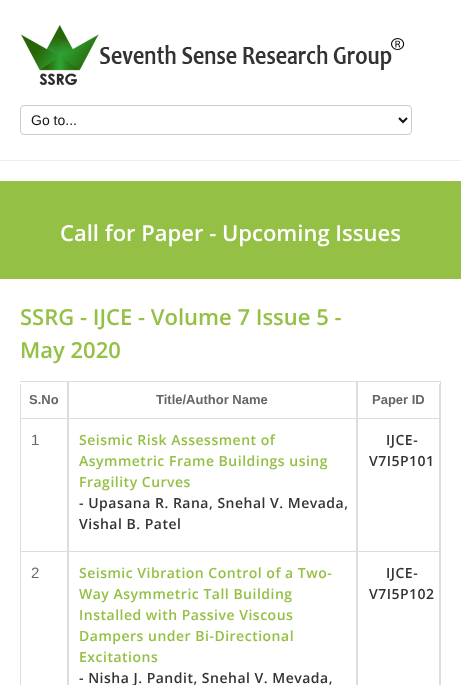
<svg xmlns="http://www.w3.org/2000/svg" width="461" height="685">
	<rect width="100%" height="100%" fill="#FFFFFF" />
	<rect x="0" y="160" width="461" height="1" fill="#EEEEEE" />
	<image x="21" y="25" width="384" height="60" href="assets/img1.png" />
	<rect x="20.5" y="105.5" width="391" height="29" rx="3.5" fill="none" stroke="#CCCCCC" />
	<path d="M399 118L403 122L407 118" fill="none" stroke="#111111" stroke-width="2" />
	<text x="31" y="125" font-family="Liberation Sans" font-size="14" fill="#111111">Go to...</text>
	<rect x="0" y="181" width="461" height="98" fill="#94C045" />
	<text x="60" y="241" font-family="Open Sans" font-size="22" font-weight="600" fill="#FFFFFF">Call for Paper - Upcoming Issues</text>
	<g font-family="Open Sans" font-size="22" font-weight="600" fill="#94C045">
		<text x="20" y="325">SSRG - IJCE - Volume 7 Issue 5 -</text>
		<text x="20" y="358">May 2020</text>
	</g>
	<rect x="20" y="381" width="421" height="1" fill="#DDDDDD" />
	<rect x="440" y="381" width="1" height="304" fill="#DDDDDD" />
	<rect x="67" y="382" width="1" height="303" fill="#DDDDDD" />
	<rect x="20" y="418" width="48" height="1" fill="#DDDDDD" />
	<rect x="20" y="384" width="1" height="35" fill="#DDDDDD" />
	<text x="29" y="404" font-family="Liberation Sans" font-size="13" font-weight="700" fill="#666666">S.No</text>
	<rect x="356" y="382" width="1" height="303" fill="#DDDDDD" />
	<rect x="68" y="418" width="289" height="1" fill="#DDDDDD" />
	<rect x="68" y="382" width="1" height="37" fill="#DDDDDD" />
	<text x="156" y="404" font-family="Liberation Sans" font-size="13" font-weight="700" fill="#666666">Title/Author Name</text>
	<rect x="439" y="384" width="1" height="301" fill="#DDDDDD" />
	<rect x="357" y="418" width="83" height="1" fill="#DDDDDD" />
	<rect x="357" y="382" width="1" height="37" fill="#DDDDDD" />
	<text x="372" y="404" font-family="Liberation Sans" font-size="13" font-weight="700" fill="#666666">Paper ID</text>
	<rect x="20" y="551" width="420" height="1" fill="#DDDDDD" />
	<rect x="20" y="419" width="1" height="266" fill="#DDDDDD" />
	<text x="31" y="445" font-family="Liberation Sans" font-size="15" letter-spacing="0.5" fill="#666666">1</text>
	<rect x="68" y="419" width="1" height="266" fill="#DDDDDD" />
	<g font-family="Open Sans" font-size="14" font-weight="600" letter-spacing="0.5" fill="#94C045">
		<text x="79" y="445">Seismic Risk Assessment of</text>
		<text x="79" y="466">Asymmetric Frame Buildings using</text>
		<text x="79" y="487">Fragility Curves</text>
	</g>
	<g font-family="Open Sans" font-size="14" font-weight="600" letter-spacing="0.5" fill="#333333">
		<text x="79" y="508">- Upasana R. Rana, Snehal V. Mevada,</text>
		<text x="79" y="529">Vishal B. Patel</text>
	</g>
	<rect x="357" y="419" width="1" height="266" fill="#DDDDDD" />
	<g font-family="Open Sans" font-size="14" font-weight="600" letter-spacing="0.5" fill="#333333">
		<text x="386" y="445">IJCE-</text>
		<text x="369" y="466">V7I5P101</text>
	</g>
	<text x="31" y="578" font-family="Liberation Sans" font-size="15" letter-spacing="0.5" fill="#666666">2</text>
	<g font-family="Open Sans" font-size="14" font-weight="600" letter-spacing="0.5" fill="#94C045">
		<text x="79" y="578">Seismic Vibration Control of a Two-</text>
		<text x="79" y="599">Way Asymmetric Tall Building</text>
		<text x="79" y="620">Installed with Passive Viscous</text>
		<text x="79" y="641">Dampers under Bi-Directional</text>
		<text x="79" y="662">Excitations</text>
	</g>
	<g font-family="Open Sans" font-size="14" font-weight="600" letter-spacing="0.5" fill="#333333">
		<text x="79" y="683">- Nisha J. Pandit, Snehal V. Mevada,</text>
		<text x="386" y="578">IJCE-</text>
		<text x="369" y="599">V7I5P102</text>
	</g>
</svg>
